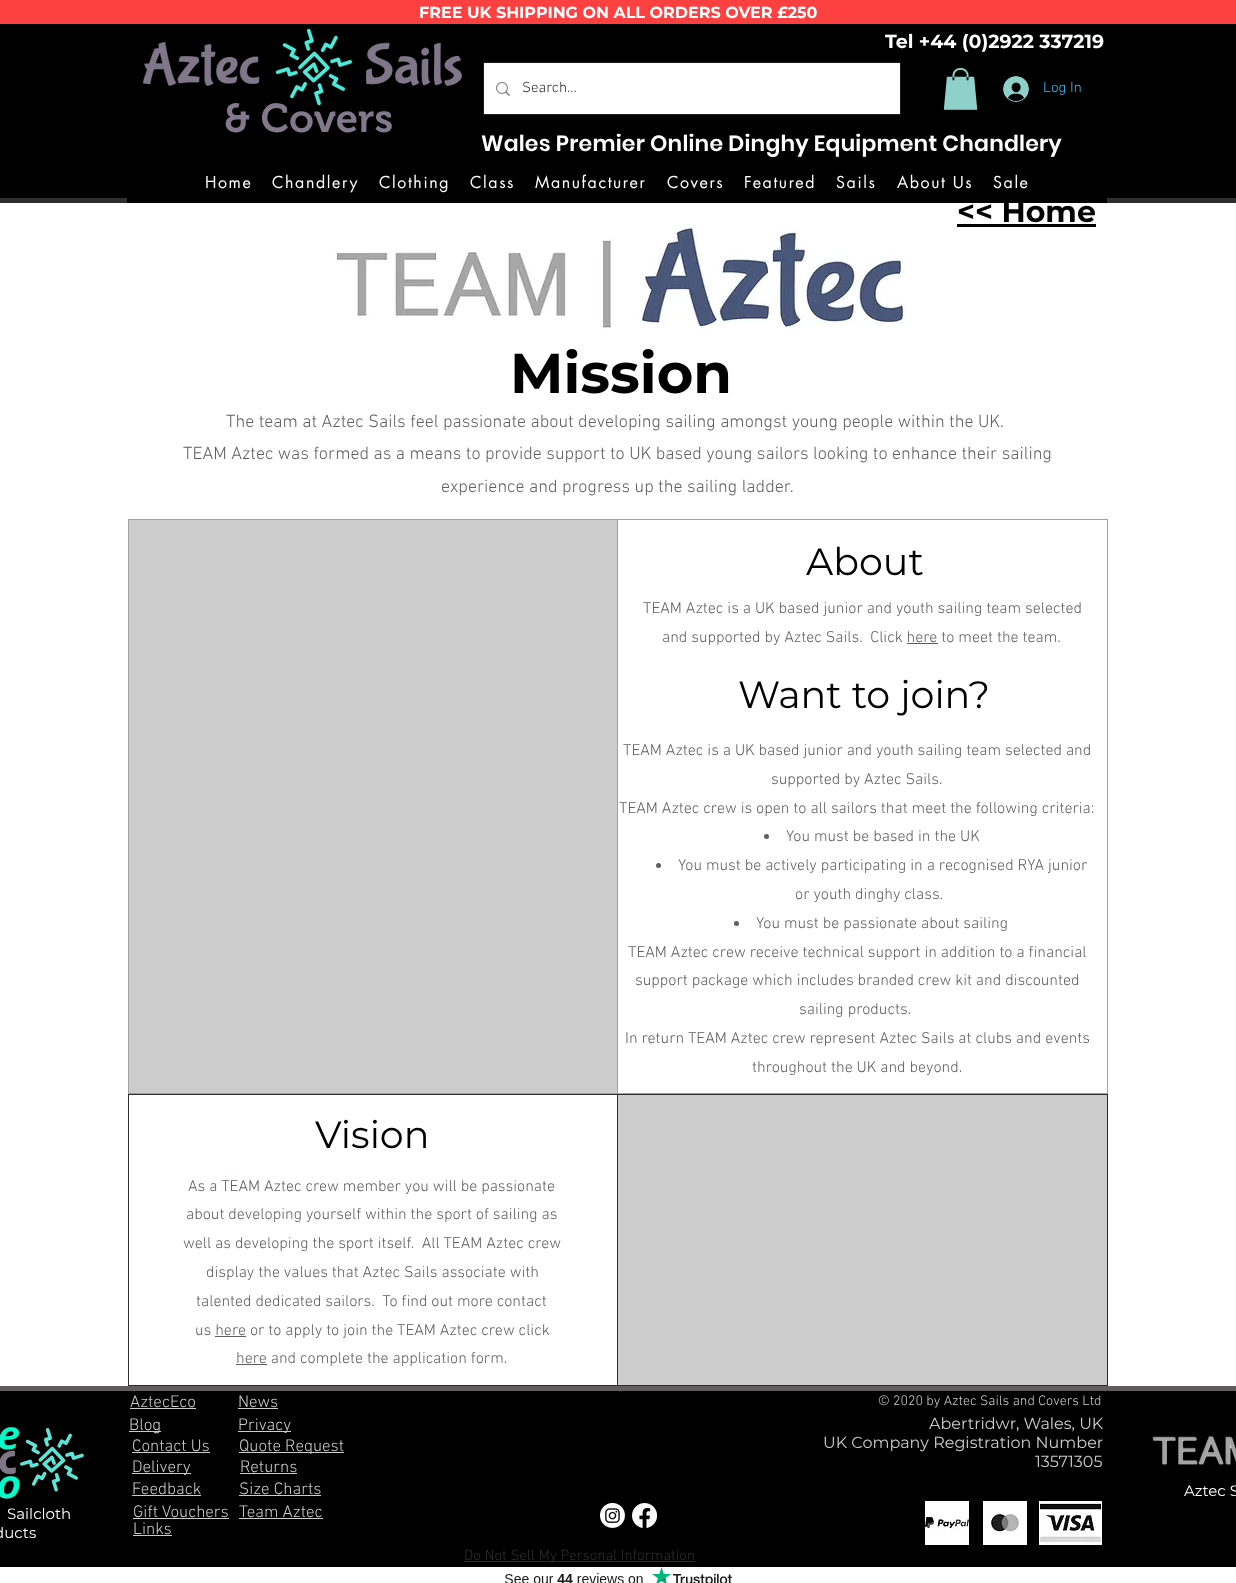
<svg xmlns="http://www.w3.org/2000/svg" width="1236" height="1583">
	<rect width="100%" height="100%" fill="#FFFFFF" />
	<rect x="0" y="0" width="1236" height="24" fill="#FF4040" />
	<text x="419" y="18" font-family="Montserrat" font-size="16" font-weight="700" fill="#FFFFFF">FREE UK SHIPPING ON ALL ORDERS OVER £250</text>
	<rect x="0" y="24" width="1236" height="174" fill="#000000" />
	<text x="885" y="48" font-family="Montserrat" font-size="19" font-weight="700" fill="#FFFFFF">Tel +44 (0)2922 337219</text>
	<rect x="483.5" y="62.5" width="417" height="52" fill="none" stroke="#1C1C1C" />
	<rect x="484" y="63" width="416" height="51" fill="#FFFFFF" />
	<image x="496" y="82" width="14" height="14" href="assets/img1.png" />
	<text x="522" y="92" font-family="'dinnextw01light'" font-size="15" font-weight="300" fill="#2F2E2E">Search...</text>
	<image x="943" y="68" width="35" height="42" href="assets/img2.png" />
	<image x="1003" y="76" width="26" height="26" href="assets/img3.png" />
	<text x="1043" y="92" font-family="'dinnextw01light'" font-size="15" font-weight="300" fill="#30BDFF">Log In</text>
	<image x="142" y="28" width="321" height="78" href="assets/img4.png" />
	<text x="224" y="132" font-family="'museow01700'" font-size="40" font-weight="600" fill="#83788C">&amp; Covers</text>
	<text x="481" y="151" font-family="Poppins" font-size="22" font-weight="600" letter-spacing="0.2" fill="#FFFFFF">Wales Premier Online Dinghy Equipment Chandlery</text>
	<text x="957" y="222" font-family="Montserrat" font-size="30" font-weight="700" fill="#000000">&lt;&lt; Home</text>
	<rect x="0" y="198" width="1236" height="5" fill="#2F2E2E" />
	<rect x="127" y="198" width="980" height="5" fill="#000000" />
	<g font-family="futura" font-size="16" letter-spacing="1.6" fill="#FFFFFF">
		<text x="205" y="188">Home</text>
		<text x="272" y="188">Chandlery</text>
		<text x="379" y="188">Clothing</text>
		<text x="470" y="188">Class</text>
		<text x="535" y="188">Manufacturer</text>
		<text x="667" y="188">Covers</text>
		<text x="744" y="188">Featured</text>
		<text x="836" y="188">Sails</text>
		<text x="897" y="188">About Us</text>
		<text x="993" y="188">Sale</text>
	</g>
	<rect x="957" y="224" width="139" height="3" fill="#000000" />
	<image x="335" y="225" width="571" height="105" href="assets/img5.png" />
	<text x="510" y="393" font-family="Montserrat" font-size="56" font-weight="700" fill="#000000">Mission</text>
	<g font-family="'dinnextw01light'" font-size="18" font-weight="300" fill="#605E5E">
		<text x="226" y="427">The team at Aztec Sails feel passionate about developing sailing amongst young people within the UK.</text>
		<text x="183" y="459">TEAM Aztec was formed as a means to provide support to UK based young sailors looking to enhance their sailing</text>
		<text x="441" y="492">experience and progress up the sailing ladder.</text>
	</g>
	<rect x="128" y="519" width="980" height="575" fill="#A0A09F" />
	<rect x="129" y="520" width="488" height="573" fill="#CCCCCC" />
	<rect x="618" y="520" width="489" height="573" fill="#FFFFFF" />
	<text x="806" y="575" font-family="Montserrat" font-size="38" fill="#000000">About</text>
	<g font-family="'dinnextw01light'" font-size="16" font-weight="300" fill="#605E5E">
		<text x="643" y="613">TEAM Aztec is a UK based junior and youth sailing team selected</text>
		<text x="662" y="642" xml:space="preserve">and supported by Aztec Sails.  Click here to meet the team.</text>
	</g>
	<rect x="907" y="643" width="31" height="1" fill="#605E5E" />
	<text x="738" y="708" font-family="Montserrat" font-size="38" fill="#000000">Want to join?</text>
	<g font-family="'dinnextw01light'" font-size="16" font-weight="300" fill="#605E5E">
		<text x="623" y="755">TEAM Aztec is a UK based junior and youth sailing team selected and</text>
		<text x="771" y="784">supported by Aztec Sails.</text>
		<text x="619" y="813">TEAM Aztec crew is open to all sailors that meet the following criteria:</text>
	</g>
	<circle cx="766.5" cy="836.5" r="2.5" fill="#605E5E" />
	<text x="786" y="841" font-family="'dinnextw01light'" font-size="16" font-weight="300" fill="#605E5E">You must be based in the UK</text>
	<circle cx="658.5" cy="865.5" r="2.5" fill="#605E5E" />
	<g font-family="'dinnextw01light'" font-size="16" font-weight="300" fill="#605E5E">
		<text x="678" y="870">You must be actively participating in a recognised RYA junior</text>
		<text x="795" y="899">or youth dinghy class.</text>
	</g>
	<circle cx="736.5" cy="923.5" r="2.5" fill="#605E5E" />
	<g font-family="'dinnextw01light'" font-size="16" font-weight="300" fill="#605E5E">
		<text x="756" y="928">You must be passionate about sailing</text>
		<text x="628" y="957">TEAM Aztec crew receive technical support in addition to a financial</text>
		<text x="635" y="985">support package which includes branded crew kit and discounted</text>
		<text x="799" y="1014">sailing products.</text>
		<text x="625" y="1043">In return TEAM Aztec crew represent Aztec Sails at clubs and events</text>
		<text x="752" y="1072">throughout the UK and beyond.</text>
	</g>
	<rect x="128" y="1094" width="980" height="292" fill="#2F2E2E" />
	<rect x="129" y="1095" width="488" height="290" fill="#FFFFFF" />
	<text x="315" y="1148" font-family="Montserrat" font-size="38" fill="#000000">Vision</text>
	<g font-family="'dinnextw01light'" font-size="16" font-weight="300" fill="#605E5E">
		<text x="188" y="1191">As a TEAM Aztec crew member you will be passionate</text>
		<text x="186" y="1219">about developing yourself within the sport of sailing as</text>
		<text x="183" y="1248" xml:space="preserve">well as developing the sport itself.  All TEAM Aztec crew</text>
		<text x="206" y="1277">display the values that Aztec Sails associate with</text>
		<text x="196" y="1306" xml:space="preserve">talented dedicated sailors.  To find out more contact</text>
		<text x="195" y="1335">us here or to apply to join the TEAM Aztec crew click</text>
	</g>
	<rect x="215" y="1336" width="31" height="1" fill="#605E5E" />
	<rect x="236" y="1364" width="31" height="1" fill="#605E5E" />
	<text x="236" y="1363" font-family="'dinnextw01light'" font-size="16" font-weight="300" fill="#605E5E">here and complete the application form.</text>
	<rect x="618" y="1095" width="489" height="290" fill="#CCCCCC" />
	<rect x="0" y="1391" width="1236" height="176" fill="#000000" />
	<rect x="0" y="1386" width="1236" height="5" fill="#605E5E" />
	<text x="130" y="1407" font-family="'dinnextw01light'" font-size="17" font-weight="300" fill="#CCCCCC">AztecEco</text>
	<rect x="130" y="1408" width="66" height="1" fill="#CCCCCC" />
	<text x="238" y="1407" font-family="'dinnextw01light'" font-size="17" font-weight="300" fill="#CCCCCC">News</text>
	<rect x="238" y="1408" width="40" height="1" fill="#CCCCCC" />
	<text x="878" y="1405" font-family="'dinnextw01light'" font-size="14" font-weight="300" fill="#CCCCCC">© 2020 by Aztec Sails and Covers Ltd</text>
	<image x="0" y="1427" width="84" height="72" href="assets/img6.png" />
	<rect x="129" y="1431" width="32" height="1" fill="#CCCCCC" />
	<text x="129" y="1430" font-family="'dinnextw01light'" font-size="17" font-weight="300" fill="#CCCCCC">Blog</text>
	<rect x="238" y="1431" width="53" height="1" fill="#CCCCCC" />
	<text x="238" y="1430" font-family="'dinnextw01light'" font-size="17" font-weight="300" fill="#CCCCCC">Privacy</text>
	<g font-family="Montserrat" font-size="16" fill="#CCCCCC">
		<text x="929" y="1429">Abertridwr, Wales, UK</text>
		<text x="823" y="1448">UK Company Registration Number</text>
		<text x="1035" y="1467">13571305</text>
	</g>
	<image x="1152" y="1436" width="84" height="29" href="assets/img7.png" />
	<text x="132" y="1451" font-family="'dinnextw01light'" font-size="17" font-weight="300" fill="#CCCCCC">Contact Us</text>
	<rect x="132" y="1452" width="78" height="1" fill="#CCCCCC" />
	<rect x="239" y="1452" width="105" height="1" fill="#CCCCCC" />
	<text x="239" y="1451" font-family="'dinnextw01light'" font-size="17" font-weight="300" fill="#CCCCCC">Quote Request</text>
	<rect x="132" y="1473" width="59" height="1" fill="#CCCCCC" />
	<g font-family="'dinnextw01light'" font-size="17" font-weight="300" fill="#CCCCCC">
		<text x="132" y="1472">Delivery</text>
		<text x="240" y="1472">Returns</text>
	</g>
	<rect x="240" y="1473" width="57" height="1" fill="#CCCCCC" />
	<text x="132" y="1494" font-family="'dinnextw01light'" font-size="17" font-weight="300" fill="#CCCCCC">Feedback</text>
	<rect x="132" y="1495" width="69" height="1" fill="#CCCCCC" />
	<text x="239" y="1494" font-family="'dinnextw01light'" font-size="17" font-weight="300" fill="#CCCCCC">Size Charts</text>
	<rect x="239" y="1495" width="82" height="1" fill="#CCCCCC" />
	<g font-family="Montserrat" font-size="15" fill="#FFFFFF">
		<text x="1184" y="1496">Aztec S</text>
		<text x="7" y="1519">Sailcloth</text>
		<text x="-6" y="1538">ducts</text>
	</g>
	<text x="133" y="1517" font-family="'dinnextw01light'" font-size="17" font-weight="300" fill="#CCCCCC">Gift Vouchers</text>
	<rect x="133" y="1518" width="96" height="1" fill="#CCCCCC" />
	<text x="239" y="1517" font-family="'dinnextw01light'" font-size="17" font-weight="300" fill="#CCCCCC">Team Aztec</text>
	<rect x="239" y="1518" width="84" height="1" fill="#CCCCCC" />
	<image x="600" y="1503" width="25" height="25" href="assets/img8.png" />
	<image x="632" y="1503" width="25" height="25" href="assets/img9.png" />
	<image x="925" y="1501" width="44" height="44" href="assets/img10.png" />
	<image x="983" y="1501" width="44" height="44" href="assets/img11.png" />
	<image x="1039" y="1501" width="63" height="44" href="assets/img12.png" />
	<text x="133" y="1534" font-family="'dinnextw01light'" font-size="17" font-weight="300" fill="#CCCCCC">Links</text>
	<rect x="133" y="1535" width="39" height="1" fill="#CCCCCC" />
	<rect x="464" y="1561" width="231" height="1" fill="#2F2E2E" />
	<text x="464" y="1560" font-family="'dinnextw01light'" font-size="15" font-weight="300" fill="#2F2E2E">Do Not Sell My Personal Information</text>
	<image x="505" y="1567" width="227" height="16" href="assets/img13.png" />
</svg>
